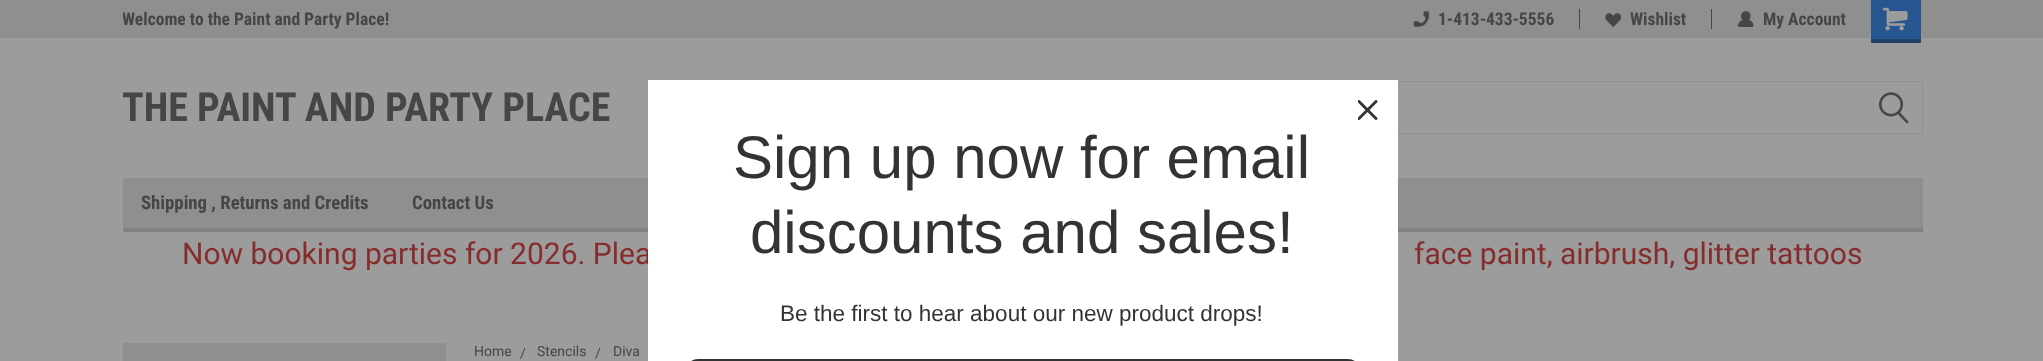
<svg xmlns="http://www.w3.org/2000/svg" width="2043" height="361">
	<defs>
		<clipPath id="clip1"><rect x="123" y="0" width="287" height="38" /></clipPath>
		<clipPath id="clip2"><rect x="123" y="78" width="487" height="60" /></clipPath>
	</defs>
	<rect width="100%" height="100%" fill="#9C9C9C" />
	<rect x="0" y="0" width="2043" height="38" fill="#8F8F8F" />
	<g clip-path="url(#clip1)">
		<text x="122" y="25" font-family="Roboto Condensed" font-size="17.5" font-weight="700" fill="#464646">Welcome to the Paint and Party Place!</text>
	</g>
	<rect x="1579" y="9" width="1" height="20" fill="#464646" />
	<image x="1413" y="11" width="16" height="16" href="assets/img1.png" />
	<text x="1438" y="25" font-family="Roboto Condensed" font-size="17.5" font-weight="700" fill="#464646">1-413-433-5556</text>
	<rect x="1711" y="9" width="1" height="20" fill="#464646" />
	<image x="1605" y="13" width="16" height="15" href="assets/img2.png" />
	<text x="1630" y="25" font-family="Roboto Condensed" font-size="17.5" font-weight="700" fill="#464646">Wishlist</text>
	<image x="1738" y="11" width="16" height="16" href="assets/img3.png" />
	<text x="1763" y="25" font-family="Roboto Condensed" font-size="17.5" font-weight="700" fill="#464646">My Account</text>
	<rect x="1871" y="0" width="50" height="39" fill="#26568F" />
	<rect x="1871" y="39" width="50" height="4" fill="#204169" />
	<image x="1883" y="7" width="25" height="24" href="assets/img4.png" />
	<g clip-path="url(#clip2)">
		<text x="122" y="121" font-family="Roboto Condensed" font-size="40" font-weight="700" fill="#464646">THE PAINT AND PARTY PLACE</text>
	</g>
	<rect x="1298.5" y="81.5" width="624" height="52" fill="none" stroke="#8F8F8F" />
	<image x="1879" y="92" width="30" height="32" href="assets/img5.png" />
	<rect x="123" y="178" width="1800" height="50" fill="#8F8F8F" />
	<rect x="123" y="228" width="1800" height="4" fill="#818181" />
	<g font-family="Roboto Condensed" font-size="18.75" font-weight="700" fill="#464646">
		<text x="141" y="209">Shipping , Returns and Credits</text>
		<text x="412" y="209">Contact Us</text>
	</g>
	<text x="182" y="264" font-family="Roboto" font-size="30" fill="#862C2C">Now booking parties for 2026. Plea</text>
	<rect x="648" y="80" width="750" height="281" fill="#FFFFFF" />
	<image x="1358" y="100" width="20" height="20" href="assets/img6.png" />
	<g font-family="Liberation Sans" font-size="60" fill="#333333">
		<text x="733" y="178">Sign up now for email</text>
		<text x="750" y="253">discounts and sales!</text>
	</g>
	<text x="780" y="321" font-family="Liberation Sans" font-size="22.5" fill="#333333">Be the first to hear about our new product drops!</text>
	<rect x="689.5" y="360.5" width="667" height="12" rx="8.5" fill="none" stroke="#333333" stroke-width="3" />
	<text x="1414" y="264" font-family="Roboto" font-size="30" fill="#862C2C">face paint, airbrush, glitter tattoos</text>
	<rect x="123" y="343" width="323" height="18" fill="#8F8F8F" />
	<g font-family="Roboto" font-size="14" fill="#464646">
		<text x="474" y="356">Home</text>
		<text x="520" y="358">/</text>
		<text x="537" y="356">Stencils</text>
		<text x="595" y="358">/</text>
		<text x="613" y="356">Diva</text>
	</g>
</svg>
